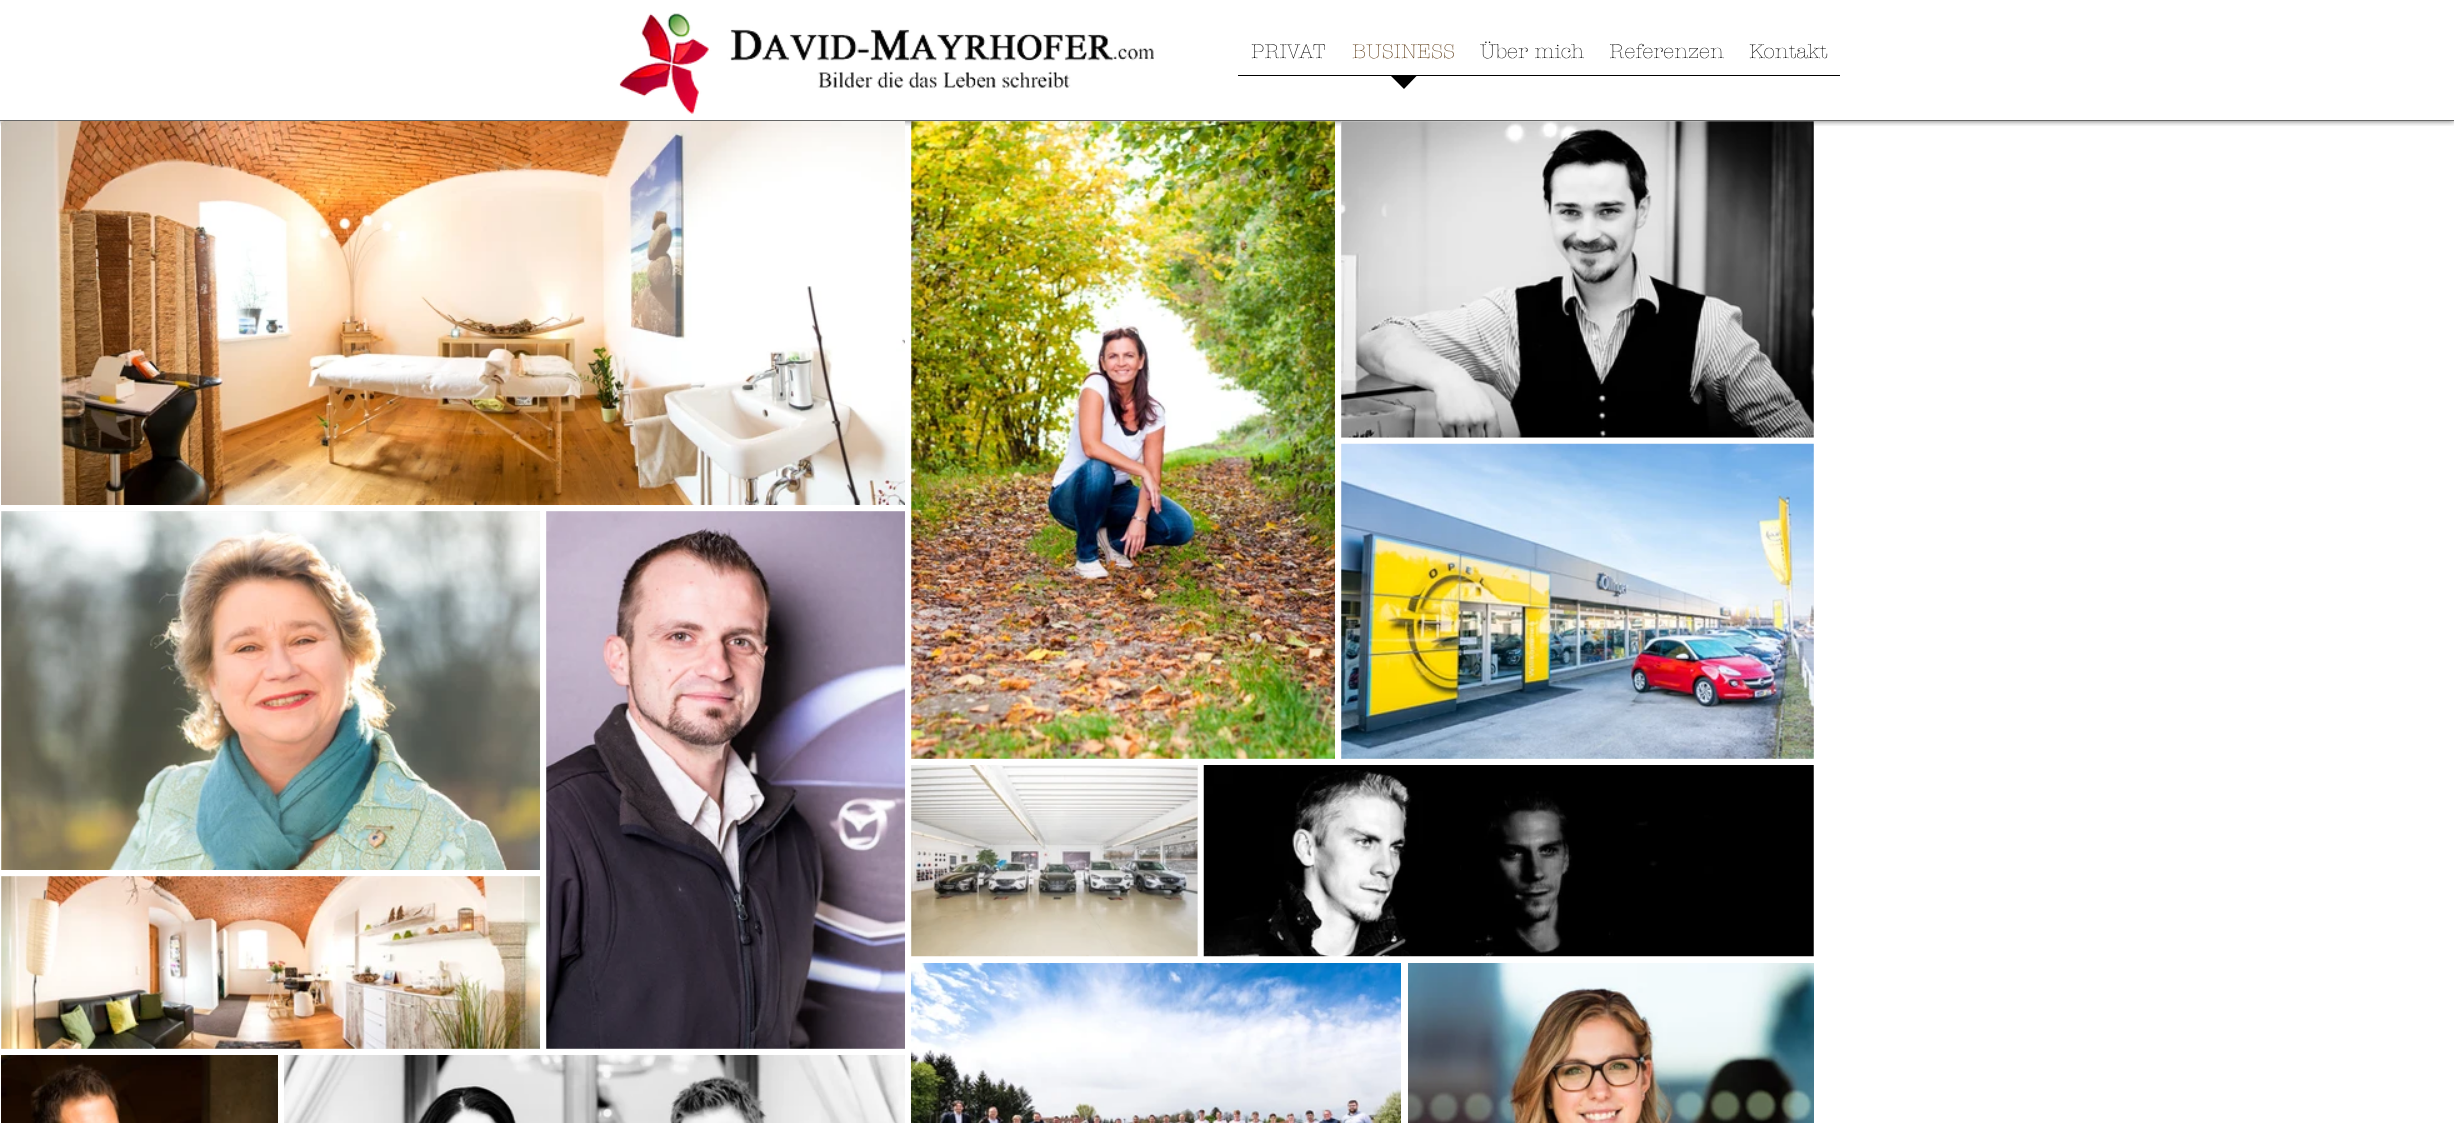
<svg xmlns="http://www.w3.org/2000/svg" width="2454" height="1123">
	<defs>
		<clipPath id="clip1"><rect x="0" y="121" width="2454" height="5" /></clipPath>
	</defs>
	<rect width="100%" height="100%" fill="#FFFFFF" />
	<g clip-path="url(#clip1)">
		<rect x="0" y="0" width="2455" height="121" fill="#000000" fill-opacity="0.6" filter="blur(3px)" />
	</g>
	<rect x="0" y="120" width="2454" height="1" fill="#666666" />
	<image x="619" y="13" width="535" height="101" href="assets/img1.png" />
	<text x="1251" y="58" font-family="'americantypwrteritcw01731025'" font-size="20" font-weight="300" fill="#000000">PRIVAT</text>
	<text x="1352" y="58" font-family="'americantypwrteritcw01731025'" font-size="20" font-weight="300" fill="#5E3C17">BUSINESS</text>
	<rect x="1238" y="75" width="602" height="1" fill="#000000" />
	<path d="M1390 75H1417.5L1404 89Z" fill="#000000" />
	<g font-family="'americantypwrteritcw01731025'" font-size="20" font-weight="300" fill="#000000">
		<text x="1480" y="58">Über mich</text>
		<text x="1609" y="58">Referenzen</text>
		<text x="1749" y="58">Kontakt</text>
	</g>
	<image x="1" y="121" width="904" height="384" href="assets/img2.png" />
	<rect x="911" y="121" width="424" height="638" fill="#EFEFEF" />
	<image x="911" y="121" width="424" height="638" href="assets/img3.png" />
	<rect x="1341" y="121" width="473" height="317" fill="#EFEFEF" />
	<image x="1341" y="121" width="473" height="317" href="assets/img4.png" />
	<rect x="1" y="511" width="539" height="359" fill="#EFEFEF" />
	<image x="1" y="511" width="539" height="359" href="assets/img5.png" />
	<rect x="546" y="511" width="359" height="538" fill="#EFEFEF" />
	<image x="546" y="511" width="359" height="538" href="assets/img6.png" />
	<rect x="911" y="765" width="287" height="191" fill="#EFEFEF" />
	<image x="911" y="765" width="287" height="192" href="assets/img7.png" />
	<rect x="1341" y="444" width="473" height="315" fill="#EFEFEF" />
	<image x="1341" y="443" width="473" height="316" href="assets/img8.png" />
	<rect x="1" y="876" width="539" height="173" fill="#EFEFEF" />
	<image x="1" y="876" width="539" height="173" href="assets/img9.png" />
	<image x="911" y="963" width="490" height="160" href="assets/img10.png" />
	<image x="1203" y="765" width="611" height="192" href="assets/img11.png" />
	<image x="1" y="1055" width="277" height="68" href="assets/img12.png" />
	<image x="284" y="1055" width="621" height="68" href="assets/img13.png" />
	<image x="1408" y="963" width="406" height="160" href="assets/img14.png" />
</svg>
